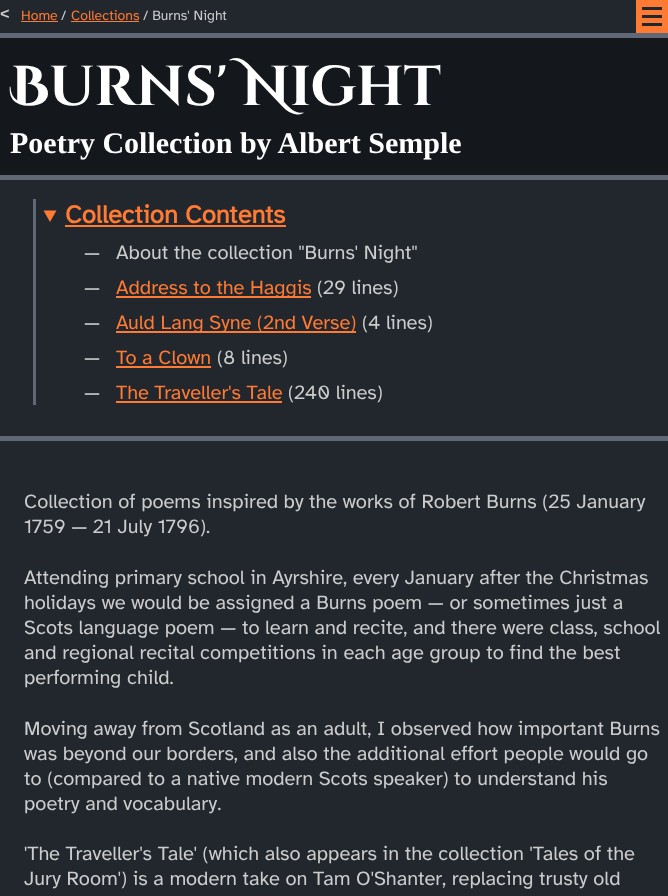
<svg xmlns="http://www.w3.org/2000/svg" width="668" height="896">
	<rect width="100%" height="100%" fill="#22272E" />
	<rect x="0" y="33" width="668" height="5" fill="#5F6874" />
	<text x="0" y="19" font-family="Liberation Mono" font-size="16" font-weight="700" fill="#CCCCCC">&lt;</text>
	<text x="21" y="20" font-family="Atkinson Hyperlegible" font-size="14" fill="#FF7A33">Home</text>
	<rect x="21" y="21" width="37" height="1" fill="#FF7A33" />
	<text x="61" y="20" font-family="Atkinson Hyperlegible" font-size="14" fill="#CCCCCC">/</text>
	<text x="71" y="20" font-family="Atkinson Hyperlegible" font-size="14" fill="#FF7A33">Collections</text>
	<rect x="71" y="21" width="68" height="1" fill="#FF7A33" />
	<text x="143" y="20" font-family="Atkinson Hyperlegible" font-size="14" fill="#CCCCCC">/ Burns' Night</text>
	<rect x="637" y="1" width="30" height="31" fill="none" stroke="#FF7A33" stroke-width="2" />
	<rect x="638" y="2" width="28" height="29" fill="#FF7A33" />
	<rect x="642" y="7" width="20" height="3" fill="#22272E" />
	<rect x="642" y="15" width="20" height="3" fill="#22272E" />
	<rect x="642" y="23" width="20" height="3" fill="#22272E" />
	<rect x="0" y="38" width="668" height="137" fill="#14181C" />
	<rect x="0" y="175" width="668" height="5" fill="#5F6874" />
	<text x="10" y="105" font-family="Cinzel Decorative" font-size="56" font-weight="700" fill="#FFFFFF">Burns' Night</text>
	<text x="10" y="153" font-family="Liberation Serif" font-size="30" font-weight="700" fill="#FFFFFF">Poetry Collection by Albert Semple</text>
	<rect x="0" y="436" width="668" height="5" fill="#5F6874" />
	<rect x="33" y="199" width="3" height="206" fill="#5F6874" />
	<path d="M43.5 210.5H56.5L50 222Z" fill="#FF7A33" />
	<text x="65" y="223" font-family="Atkinson Hyperlegible" font-size="25.5" font-weight="700" fill="#FF7A33">Collection Contents</text>
	<rect x="65" y="225" width="221" height="2" fill="#FF7A33" />
	<g font-family="Atkinson Hyperlegible" font-size="20.05" fill="#CCCCCC">
		<text x="84" y="259">—</text>
		<text x="116" y="259">About the collection "Burns' Night"</text>
		<text x="84" y="294">—</text>
	</g>
	<rect x="116" y="296" width="195" height="2" fill="#FF7A33" />
	<text x="116" y="294" font-family="Atkinson Hyperlegible" font-size="20.05" fill="#FF7A33">Address to the Haggis</text>
	<g font-family="Atkinson Hyperlegible" font-size="20.05" fill="#CCCCCC">
		<text x="317" y="294">(29 lines)</text>
		<text x="84" y="329">—</text>
	</g>
	<rect x="116" y="331" width="240" height="2" fill="#FF7A33" />
	<text x="116" y="329" font-family="Atkinson Hyperlegible" font-size="20.05" fill="#FF7A33">Auld Lang Syne (2nd Verse)</text>
	<g font-family="Atkinson Hyperlegible" font-size="20.05" fill="#CCCCCC">
		<text x="362" y="329">(4 lines)</text>
		<text x="84" y="364">—</text>
	</g>
	<text x="116" y="364" font-family="Atkinson Hyperlegible" font-size="20.05" fill="#FF7A33">To a Clown</text>
	<rect x="116" y="366" width="95" height="2" fill="#FF7A33" />
	<g font-family="Atkinson Hyperlegible" font-size="20.05" fill="#CCCCCC">
		<text x="217" y="364">(8 lines)</text>
		<text x="84" y="399">—</text>
	</g>
	<text x="116" y="399" font-family="Atkinson Hyperlegible" font-size="20.05" fill="#FF7A33">The Traveller's Tale</text>
	<rect x="116" y="401" width="166" height="2" fill="#FF7A33" />
	<g font-family="Atkinson Hyperlegible" font-size="20.05" fill="#CCCCCC">
		<text x="288" y="399">(240 lines)</text>
		<text x="24" y="508">Collection of poems inspired by the works of Robert Burns (25 January</text>
		<text x="24" y="533">1759 — 21 July 1796).</text>
		<text x="24" y="584">Attending primary school in Ayrshire, every January after the Christmas</text>
		<text x="24" y="609">holidays we would be assigned a Burns poem — or sometimes just a</text>
		<text x="24" y="634">Scots language poem — to learn and recite, and there were class, school</text>
		<text x="24" y="659">and regional recital competitions in each age group to find the best</text>
		<text x="24" y="684">performing child.</text>
		<text x="24" y="735">Moving away from Scotland as an adult, I observed how important Burns</text>
		<text x="24" y="760">was beyond our borders, and also the additional effort people would go</text>
		<text x="24" y="785">to (compared to a native modern Scots speaker) to understand his</text>
		<text x="24" y="810">poetry and vocabulary.</text>
		<text x="24" y="860">'The Traveller's Tale' (which also appears in the collection 'Tales of the</text>
		<text x="24" y="885">Jury Room') is a modern take on Tam O'Shanter, replacing trusty old</text>
	</g>
</svg>
